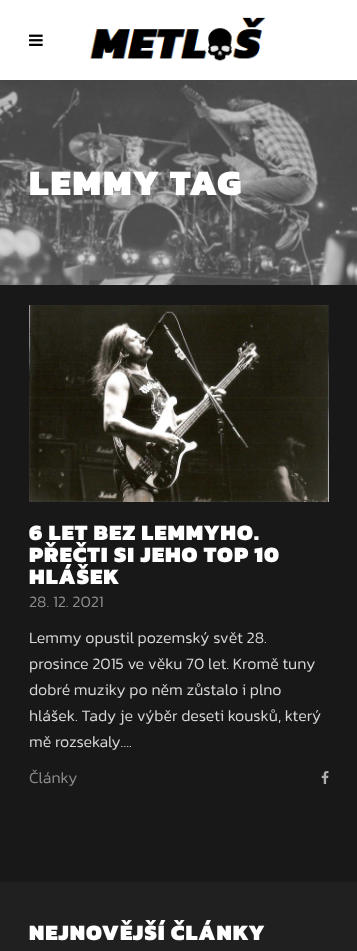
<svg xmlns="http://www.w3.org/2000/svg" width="357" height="951">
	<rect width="100%" height="100%" fill="#181818" />
	<rect x="0" y="0" width="357" height="80" fill="#FFFFFF" />
	<image x="29" y="34" width="14" height="12" href="assets/img1.png" />
	<image x="90" y="17" width="176" height="44" href="assets/img2.png" />
	<image x="0" y="80" width="357" height="205" href="assets/img3.png" />
	<text x="29" y="195" font-family="Kanit" font-size="36" font-weight="900" letter-spacing="2" fill="#FFFFFF">LEMMY TAG</text>
	<image x="29" y="305" width="300" height="197" href="assets/img4.png" />
	<g font-family="Kanit" font-size="22" font-weight="900" letter-spacing="1" fill="#FFFFFF">
		<text x="29" y="540">6 LET BEZ LEMMYHO.</text>
		<text x="29" y="562">PŘEČTI SI JEHO TOP 10</text>
		<text x="29" y="584">HLÁŠEK</text>
	</g>
	<text x="29" y="607" font-family="Kanit" font-size="16" font-weight="300" fill="#8D8D8D">28. 12. 2021</text>
	<g font-family="Kanit" font-size="16" font-weight="300" fill="#D6D6D6">
		<text x="29" y="643">Lemmy opustil pozemský svět 28.</text>
		<text x="29" y="669">prosince 2015 ve věku 70 let. Kromě tuny</text>
		<text x="29" y="695">dobré muziky po něm zůstalo i plno</text>
		<text x="29" y="721">hlášek. Tady je výběr deseti kousků, který</text>
		<text x="29" y="747">mě rozsekaly....</text>
	</g>
	<text x="29" y="783" font-family="Kanit" font-size="16" font-weight="300" fill="#8D8D8D">Články</text>
	<image x="321" y="771" width="8" height="13" href="assets/img5.png" />
	<rect x="0" y="882" width="357" height="69" fill="#202021" />
	<text x="29" y="940" font-family="Kanit" font-size="22" font-weight="900" letter-spacing="1" fill="#FFFFFF">NEJNOVĚJŠÍ ČLÁNKY</text>
</svg>
